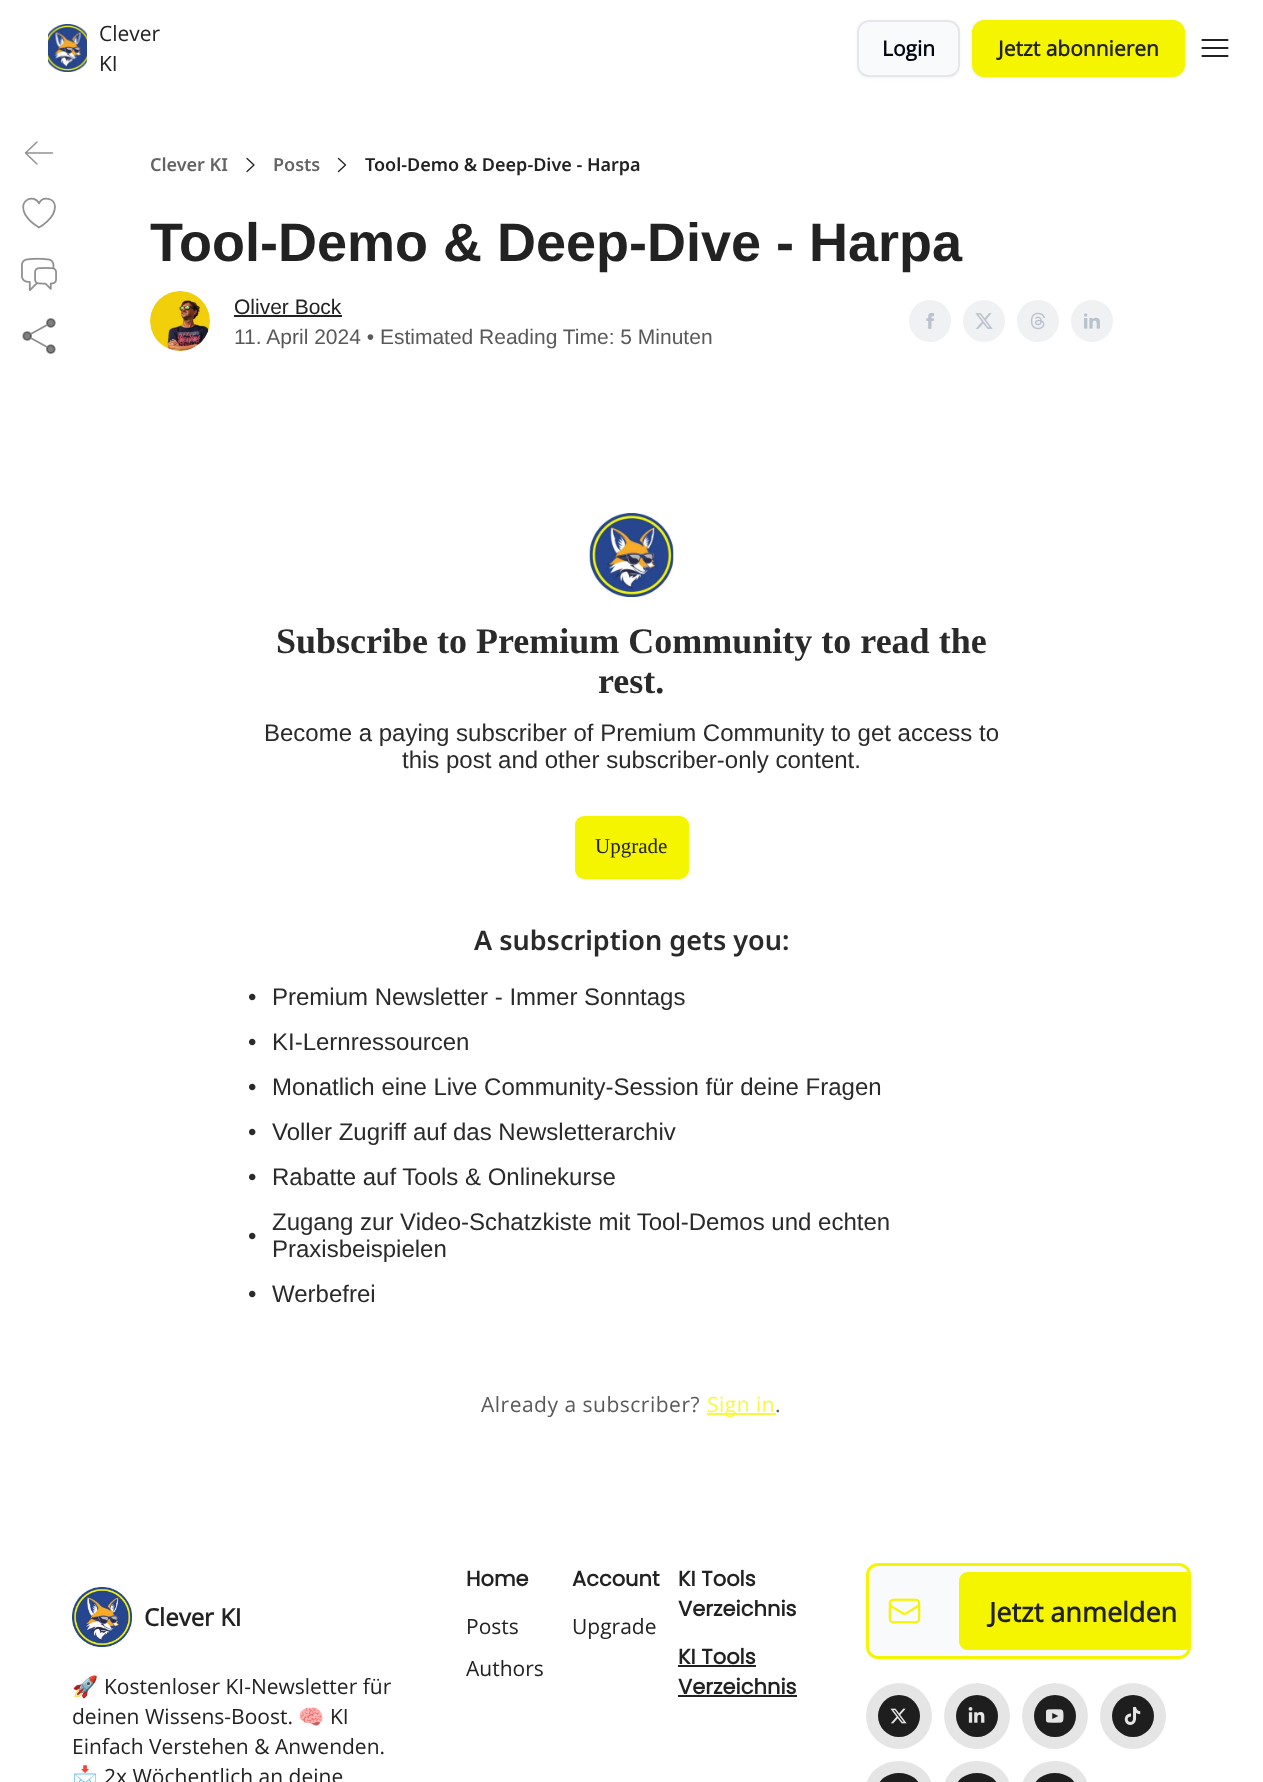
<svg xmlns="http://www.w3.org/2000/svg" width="1263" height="1782">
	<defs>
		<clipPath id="clip1"><rect x="869" y="1566" width="319" height="90" rx="9" /></clipPath>
	</defs>
	<rect width="100%" height="100%" fill="#FFFFFF" />
	<image x="48" y="24" width="39" height="48" href="assets/img1.png" />
	<g font-family="Open Sans" font-size="21" fill="#222222">
		<text x="99" y="41">Clever</text>
		<text x="99" y="71">KI</text>
	</g>
	<rect x="857" y="21" width="103" height="57" rx="12" fill="#000000" fill-opacity="0.05" filter="blur(1.5px)" />
	<rect x="858" y="21" width="101" height="55" rx="11" fill="#F9FAFB" stroke="#E5E7EB" stroke-width="2" />
	<text x="882" y="56" font-family="Open Sans" font-size="21" font-weight="700" fill="#030712">Login</text>
	<rect x="972" y="21" width="213" height="57" rx="12" fill="#000000" fill-opacity="0.05" filter="blur(1.5px)" />
	<rect x="973" y="21" width="211" height="55" rx="11" fill="#F5F500" stroke="#F5F500" stroke-width="2" />
	<text x="998" y="56" font-family="Open Sans" font-size="21" font-weight="700" fill="#222222">Jetzt abonnieren</text>
	<path d="M1202.5 40H1227.5M1202.5 48H1227.5M1202.5 56H1227.5" fill="none" stroke="#222222" stroke-width="2.2" stroke-linecap="round" stroke-linejoin="round" />
	<path d="M37 164L25.5 153M25.5 153L37 142M25.5 153H52.5" fill="none" stroke="#919191" stroke-width="1.5" stroke-linecap="round" stroke-linejoin="round" />
	<path d="M55 206.5C55 198 42.5 195.5 39 203.5C34.5 193.5 17 199.5 25.5 215C28.5 220 34 224.5 39 227.5C39 227.5 55 219 55 206.5Z" fill="none" stroke="#919191" stroke-width="1.8" stroke-linecap="round" stroke-linejoin="round" />
	<image x="21" y="257" width="36" height="35" href="assets/img2.png" />
	<image x="22" y="318" width="34" height="36" href="assets/img3.png" />
	<text x="150" y="171" font-family="Noto Sans" font-size="18" font-weight="600" fill="#646464">Clever KI</text>
	<path d="M247 158.5L254 165L247 171.5" fill="none" stroke="#222222" stroke-width="1.3" stroke-linecap="round" stroke-linejoin="round" />
	<text x="273" y="171" font-family="Noto Sans" font-size="18" font-weight="600" fill="#646464">Posts</text>
	<path d="M338.5 158.5L345.5 165L338.5 171.5" fill="none" stroke="#222222" stroke-width="1.3" stroke-linecap="round" stroke-linejoin="round" />
	<text x="365" y="171" font-family="Noto Sans" font-size="18" font-weight="600" fill="#222222">Tool-Demo &amp; Deep-Dive - Harpa</text>
	<text x="150" y="261" font-family="Liberation Sans" font-size="54" font-weight="700" fill="#222222">Tool-Demo &amp; Deep-Dive - Harpa</text>
	<image x="150" y="291" width="60" height="60" href="assets/img4.png" />
	<text x="234" y="314" font-family="Liberation Sans" font-size="21" fill="#222222">Oliver Bock</text>
	<rect x="234" y="315" width="108" height="2" fill="#222222" />
	<text x="234" y="344" font-family="Liberation Sans" font-size="21" fill="#595959">11. April 2024 • Estimated Reading Time: 5 Minuten</text>
	<image x="909" y="300" width="42" height="42" href="assets/img5.png" />
	<image x="963" y="300" width="42" height="42" href="assets/img6.png" />
	<image x="1017" y="300" width="42" height="42" href="assets/img7.png" />
	<image x="1071" y="300" width="42" height="42" href="assets/img8.png" />
	<image x="589" y="513" width="85" height="84" href="assets/img9.png" />
	<g font-family="Liberation Serif" font-size="36" font-weight="700" fill="#2A2A2A">
		<text x="276" y="653">Subscribe to Premium Community to read the</text>
		<text x="598" y="693">rest.</text>
	</g>
	<g font-family="Liberation Sans" font-size="24" fill="#2A2A2A">
		<text x="264" y="741">Become a paying subscriber of Premium Community to get access to</text>
		<text x="402" y="768">this post and other subscriber-only content.</text>
	</g>
	<rect x="575" y="816" width="114" height="63" rx="9" fill="#F5F500" />
	<text x="595" y="853" font-family="Liberation Serif" font-size="21" fill="#222222">Upgrade</text>
	<text x="474" y="950" font-family="Noto Sans" font-size="27" font-weight="600" fill="#2A2A2A">A subscription gets you:</text>
	<g font-family="Liberation Sans" font-size="24" fill="#2A2A2A">
		<text x="248" y="1005">•</text>
		<text x="272" y="1005">Premium Newsletter - Immer Sonntags</text>
		<text x="248" y="1050">•</text>
		<text x="272" y="1050">KI-Lernressourcen</text>
		<text x="248" y="1095">•</text>
		<text x="272" y="1095">Monatlich eine Live Community-Session für deine Fragen</text>
		<text x="248" y="1140">•</text>
		<text x="272" y="1140">Voller Zugriff auf das Newsletterarchiv</text>
		<text x="248" y="1185">•</text>
		<text x="272" y="1185">Rabatte auf Tools &amp; Onlinekurse</text>
		<text x="272" y="1230">Zugang zur Video-Schatzkiste mit Tool-Demos und echten</text>
		<text x="248" y="1244">•</text>
		<text x="272" y="1257">Praxisbeispielen</text>
		<text x="248" y="1302">•</text>
		<text x="272" y="1302">Werbefrei</text>
	</g>
	<text x="481" y="1412" font-family="Open Sans" font-size="21" letter-spacing="0.5" fill="#595959">Already a subscriber?</text>
	<rect x="707" y="1413" width="69" height="2" fill="#F8F840" />
	<text x="707" y="1412" font-family="Open Sans" font-size="21" letter-spacing="0.5" fill="#F8F840">Sign in</text>
	<text x="775" y="1412" font-family="Open Sans" font-size="21" letter-spacing="0.5" fill="#595959">.</text>
	<image x="72" y="1587" width="60" height="60" href="assets/img10.png" />
	<text x="144" y="1626" font-family="Open Sans" font-size="24" font-weight="700" fill="#222222">Clever KI</text>
	<text x="72" y="1694" font-family="Noto Color Emoji" font-size="21" fill="#222222">🚀</text>
	<g font-family="Open Sans" font-size="21" fill="#222222">
		<text x="104" y="1694">Kostenloser KI-Newsletter für</text>
		<text x="72" y="1724">deinen Wissens-Boost.</text>
	</g>
	<text x="298" y="1724" font-family="Noto Color Emoji" font-size="21" fill="#222222">🧠</text>
	<g font-family="Open Sans" font-size="21" fill="#222222">
		<text x="330" y="1724">KI</text>
		<text x="72" y="1754">Einfach Verstehen &amp; Anwenden.</text>
	</g>
	<text x="72" y="1784" font-family="Noto Color Emoji" font-size="21" fill="#222222">📩</text>
	<text x="104" y="1784" font-family="Open Sans" font-size="21" fill="#222222">2x Wöchentlich an deine</text>
	<text x="466" y="1586" font-family="Poppins" font-size="21" font-weight="700" fill="#222222">Home</text>
	<g font-family="Open Sans" font-size="21" fill="#222222">
		<text x="466" y="1634">Posts</text>
		<text x="466" y="1676">Authors</text>
	</g>
	<text x="572" y="1586" font-family="Poppins" font-size="21" font-weight="700" fill="#222222">Account</text>
	<text x="572" y="1634" font-family="Open Sans" font-size="21" fill="#222222">Upgrade</text>
	<g font-family="Poppins" font-size="21" font-weight="700" fill="#222222">
		<text x="678" y="1586">KI Tools</text>
		<text x="678" y="1616">Verzeichnis</text>
		<text x="678" y="1664">KI Tools</text>
	</g>
	<rect x="678" y="1665" width="78" height="2" fill="#222222" />
	<text x="678" y="1694" font-family="Poppins" font-size="21" font-weight="700" fill="#222222">Verzeichnis</text>
	<rect x="678" y="1695" width="119" height="2" fill="#222222" />
	<rect x="867.5" y="1564.5" width="322" height="93" rx="10.5" fill="#F9FAFB" stroke="#F5F500" stroke-width="3" />
	<image x="888" y="1598" width="33" height="26" href="assets/img11.png" />
	<g clip-path="url(#clip1)">
		<path d="M968 1572H1188V1650H968C963 1650 959 1646 959 1641V1581C959 1576 963 1572 968 1572Z" fill="#F5F500" />
	</g>
	<text x="989" y="1622" font-family="Open Sans" font-size="27" font-weight="700" fill="#222222">Jetzt anmelden</text>
	<circle cx="899" cy="1716" r="21" fill="#222222" />
	<image x="890" y="1708" width="17" height="16" href="assets/img12.png" />
	<circle cx="899" cy="1716" r="33" fill="#000000" fill-opacity="0.1" />
	<circle cx="977" cy="1716" r="21" fill="#222222" />
	<image x="968" y="1707" width="17" height="16" href="assets/img13.png" />
	<circle cx="977" cy="1716" r="33" fill="#000000" fill-opacity="0.1" />
	<circle cx="1055" cy="1716" r="21" fill="#222222" />
	<image x="1046" y="1709" width="18" height="14" href="assets/img14.png" />
	<circle cx="1055" cy="1716" r="33" fill="#000000" fill-opacity="0.1" />
	<circle cx="1133" cy="1716" r="21" fill="#222222" />
	<image x="1124" y="1707" width="17" height="18" href="assets/img15.png" />
	<circle cx="1133" cy="1716" r="33" fill="#000000" fill-opacity="0.1" />
	<rect x="878" y="1773" width="42" height="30" rx="21" fill="#222222" />
	<rect x="866" y="1761" width="66" height="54" rx="33" fill="#000000" fill-opacity="0.1" />
	<rect x="956" y="1773" width="42" height="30" rx="21" fill="#222222" />
	<rect x="944" y="1761" width="66" height="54" rx="33" fill="#000000" fill-opacity="0.1" />
	<rect x="1034" y="1773" width="42" height="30" rx="21" fill="#222222" />
	<rect x="1022" y="1761" width="66" height="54" rx="33" fill="#000000" fill-opacity="0.1" />
</svg>
